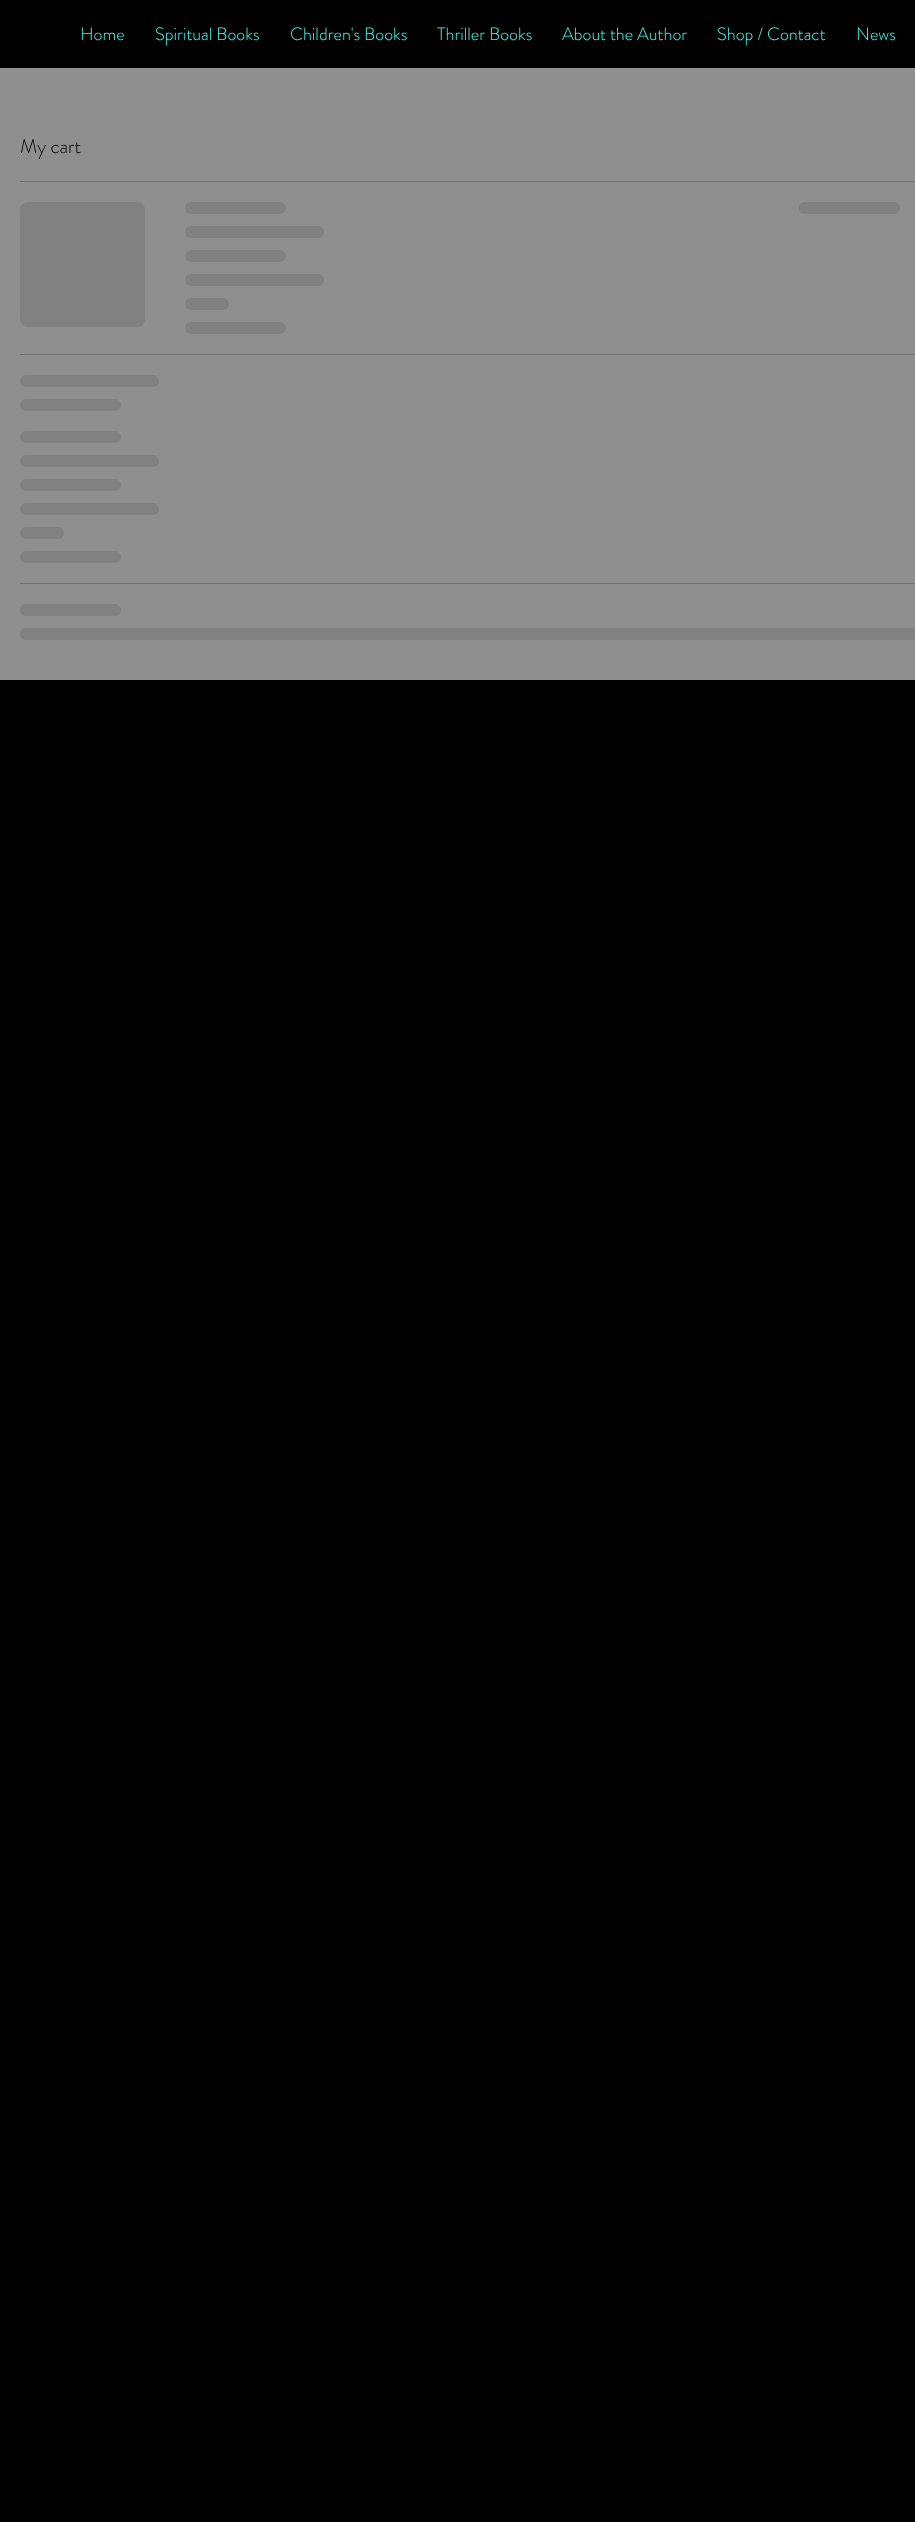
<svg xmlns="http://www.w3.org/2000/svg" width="915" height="2522">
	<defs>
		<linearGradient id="g1" gradientUnits="userSpaceOnUse" x1="20" y1="265" x2="520" y2="265"><stop offset="0.25" stop-color="#818181" /><stop offset="0.37" stop-color="#727272" /><stop offset="0.63" stop-color="#818181" /></linearGradient>
		<linearGradient id="g2" gradientUnits="userSpaceOnUse" x1="185" y1="208" x2="589" y2="208"><stop offset="0.25" stop-color="#818181" /><stop offset="0.37" stop-color="#727272" /><stop offset="0.63" stop-color="#818181" /></linearGradient>
		<linearGradient id="g3" gradientUnits="userSpaceOnUse" x1="185" y1="232" x2="741" y2="232"><stop offset="0.25" stop-color="#818181" /><stop offset="0.37" stop-color="#727272" /><stop offset="0.63" stop-color="#818181" /></linearGradient>
		<linearGradient id="g4" gradientUnits="userSpaceOnUse" x1="185" y1="256" x2="589" y2="256"><stop offset="0.25" stop-color="#818181" /><stop offset="0.37" stop-color="#727272" /><stop offset="0.63" stop-color="#818181" /></linearGradient>
		<linearGradient id="g5" gradientUnits="userSpaceOnUse" x1="185" y1="280" x2="741" y2="280"><stop offset="0.25" stop-color="#818181" /><stop offset="0.37" stop-color="#727272" /><stop offset="0.63" stop-color="#818181" /></linearGradient>
		<linearGradient id="g6" gradientUnits="userSpaceOnUse" x1="185" y1="304" x2="361" y2="304"><stop offset="0.25" stop-color="#818181" /><stop offset="0.37" stop-color="#727272" /><stop offset="0.63" stop-color="#818181" /></linearGradient>
		<linearGradient id="g7" gradientUnits="userSpaceOnUse" x1="185" y1="328" x2="589" y2="328"><stop offset="0.25" stop-color="#818181" /><stop offset="0.37" stop-color="#727272" /><stop offset="0.63" stop-color="#818181" /></linearGradient>
		<linearGradient id="g8" gradientUnits="userSpaceOnUse" x1="799" y1="208" x2="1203" y2="208"><stop offset="0.25" stop-color="#818181" /><stop offset="0.37" stop-color="#727272" /><stop offset="0.63" stop-color="#818181" /></linearGradient>
		<linearGradient id="g9" gradientUnits="userSpaceOnUse" x1="20" y1="381" x2="576" y2="381"><stop offset="0.25" stop-color="#818181" /><stop offset="0.37" stop-color="#727272" /><stop offset="0.63" stop-color="#818181" /></linearGradient>
		<linearGradient id="g10" gradientUnits="userSpaceOnUse" x1="20" y1="405" x2="424" y2="405"><stop offset="0.25" stop-color="#818181" /><stop offset="0.37" stop-color="#727272" /><stop offset="0.63" stop-color="#818181" /></linearGradient>
		<linearGradient id="g11" gradientUnits="userSpaceOnUse" x1="20" y1="437" x2="424" y2="437"><stop offset="0.25" stop-color="#818181" /><stop offset="0.37" stop-color="#727272" /><stop offset="0.63" stop-color="#818181" /></linearGradient>
		<linearGradient id="g12" gradientUnits="userSpaceOnUse" x1="20" y1="461" x2="576" y2="461"><stop offset="0.25" stop-color="#818181" /><stop offset="0.37" stop-color="#727272" /><stop offset="0.63" stop-color="#818181" /></linearGradient>
		<linearGradient id="g13" gradientUnits="userSpaceOnUse" x1="20" y1="485" x2="424" y2="485"><stop offset="0.25" stop-color="#818181" /><stop offset="0.37" stop-color="#727272" /><stop offset="0.63" stop-color="#818181" /></linearGradient>
		<linearGradient id="g14" gradientUnits="userSpaceOnUse" x1="20" y1="509" x2="576" y2="509"><stop offset="0.25" stop-color="#818181" /><stop offset="0.37" stop-color="#727272" /><stop offset="0.63" stop-color="#818181" /></linearGradient>
		<linearGradient id="g15" gradientUnits="userSpaceOnUse" x1="20" y1="533" x2="196" y2="533"><stop offset="0.25" stop-color="#818181" /><stop offset="0.37" stop-color="#727272" /><stop offset="0.63" stop-color="#818181" /></linearGradient>
		<linearGradient id="g16" gradientUnits="userSpaceOnUse" x1="20" y1="557" x2="424" y2="557"><stop offset="0.25" stop-color="#818181" /><stop offset="0.37" stop-color="#727272" /><stop offset="0.63" stop-color="#818181" /></linearGradient>
		<linearGradient id="g17" gradientUnits="userSpaceOnUse" x1="20" y1="610" x2="424" y2="610"><stop offset="0.25" stop-color="#818181" /><stop offset="0.37" stop-color="#727272" /><stop offset="0.63" stop-color="#818181" /></linearGradient>
		<linearGradient id="g18" gradientUnits="userSpaceOnUse" x1="20" y1="634" x2="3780" y2="634"><stop offset="0.25" stop-color="#818181" /><stop offset="0.37" stop-color="#727272" /><stop offset="0.63" stop-color="#818181" /></linearGradient>
	</defs>
	<rect width="100%" height="100%" fill="#000000" />
	<g font-family="'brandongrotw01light'" font-size="18" font-weight="300" fill="#47FFED">
		<text x="80" y="40">Home</text>
		<text x="155" y="40">Spiritual Books</text>
		<text x="290" y="40">Children's Books</text>
		<text x="437" y="40">Thriller Books</text>
		<text x="562" y="40">About the Author</text>
		<text x="717" y="40">Shop / Contact</text>
		<text x="856" y="40">News</text>
	</g>
	<rect x="0" y="68" width="915" height="612" fill="#8F8F8F" />
	<rect x="20" y="181" width="895" height="1" fill="#727272" />
	<text x="20" y="153" font-family="'brandongrotw01light'" font-size="20" font-weight="300" fill="#000000">My cart</text>
	<rect x="20" y="202" width="125" height="125" rx="8" fill="url(#g1)" />
	<rect x="185" y="202" width="101" height="12" rx="6" fill="url(#g2)" />
	<rect x="185" y="226" width="139" height="12" rx="6" fill="url(#g3)" />
	<rect x="185" y="250" width="101" height="12" rx="6" fill="url(#g4)" />
	<rect x="185" y="274" width="139" height="12" rx="6" fill="url(#g5)" />
	<rect x="185" y="298" width="44" height="12" rx="6" fill="url(#g6)" />
	<rect x="185" y="322" width="101" height="12" rx="6" fill="url(#g7)" />
	<rect x="799" y="202" width="101" height="12" rx="6" fill="url(#g8)" />
	<rect x="20" y="354" width="895" height="1" fill="#727272" />
	<rect x="20" y="375" width="139" height="12" rx="6" fill="url(#g9)" />
	<rect x="20" y="399" width="101" height="12" rx="6" fill="url(#g10)" />
	<rect x="20" y="431" width="101" height="12" rx="6" fill="url(#g11)" />
	<rect x="20" y="455" width="139" height="12" rx="6" fill="url(#g12)" />
	<rect x="20" y="479" width="101" height="12" rx="6" fill="url(#g13)" />
	<rect x="20" y="503" width="139" height="12" rx="6" fill="url(#g14)" />
	<rect x="20" y="527" width="44" height="12" rx="6" fill="url(#g15)" />
	<rect x="20" y="551" width="101" height="12" rx="6" fill="url(#g16)" />
	<rect x="20" y="583" width="895" height="1" fill="#727272" />
	<rect x="20" y="604" width="101" height="12" rx="6" fill="url(#g17)" />
	<rect x="20" y="628" width="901" height="12" rx="6" fill="url(#g18)" />
</svg>
